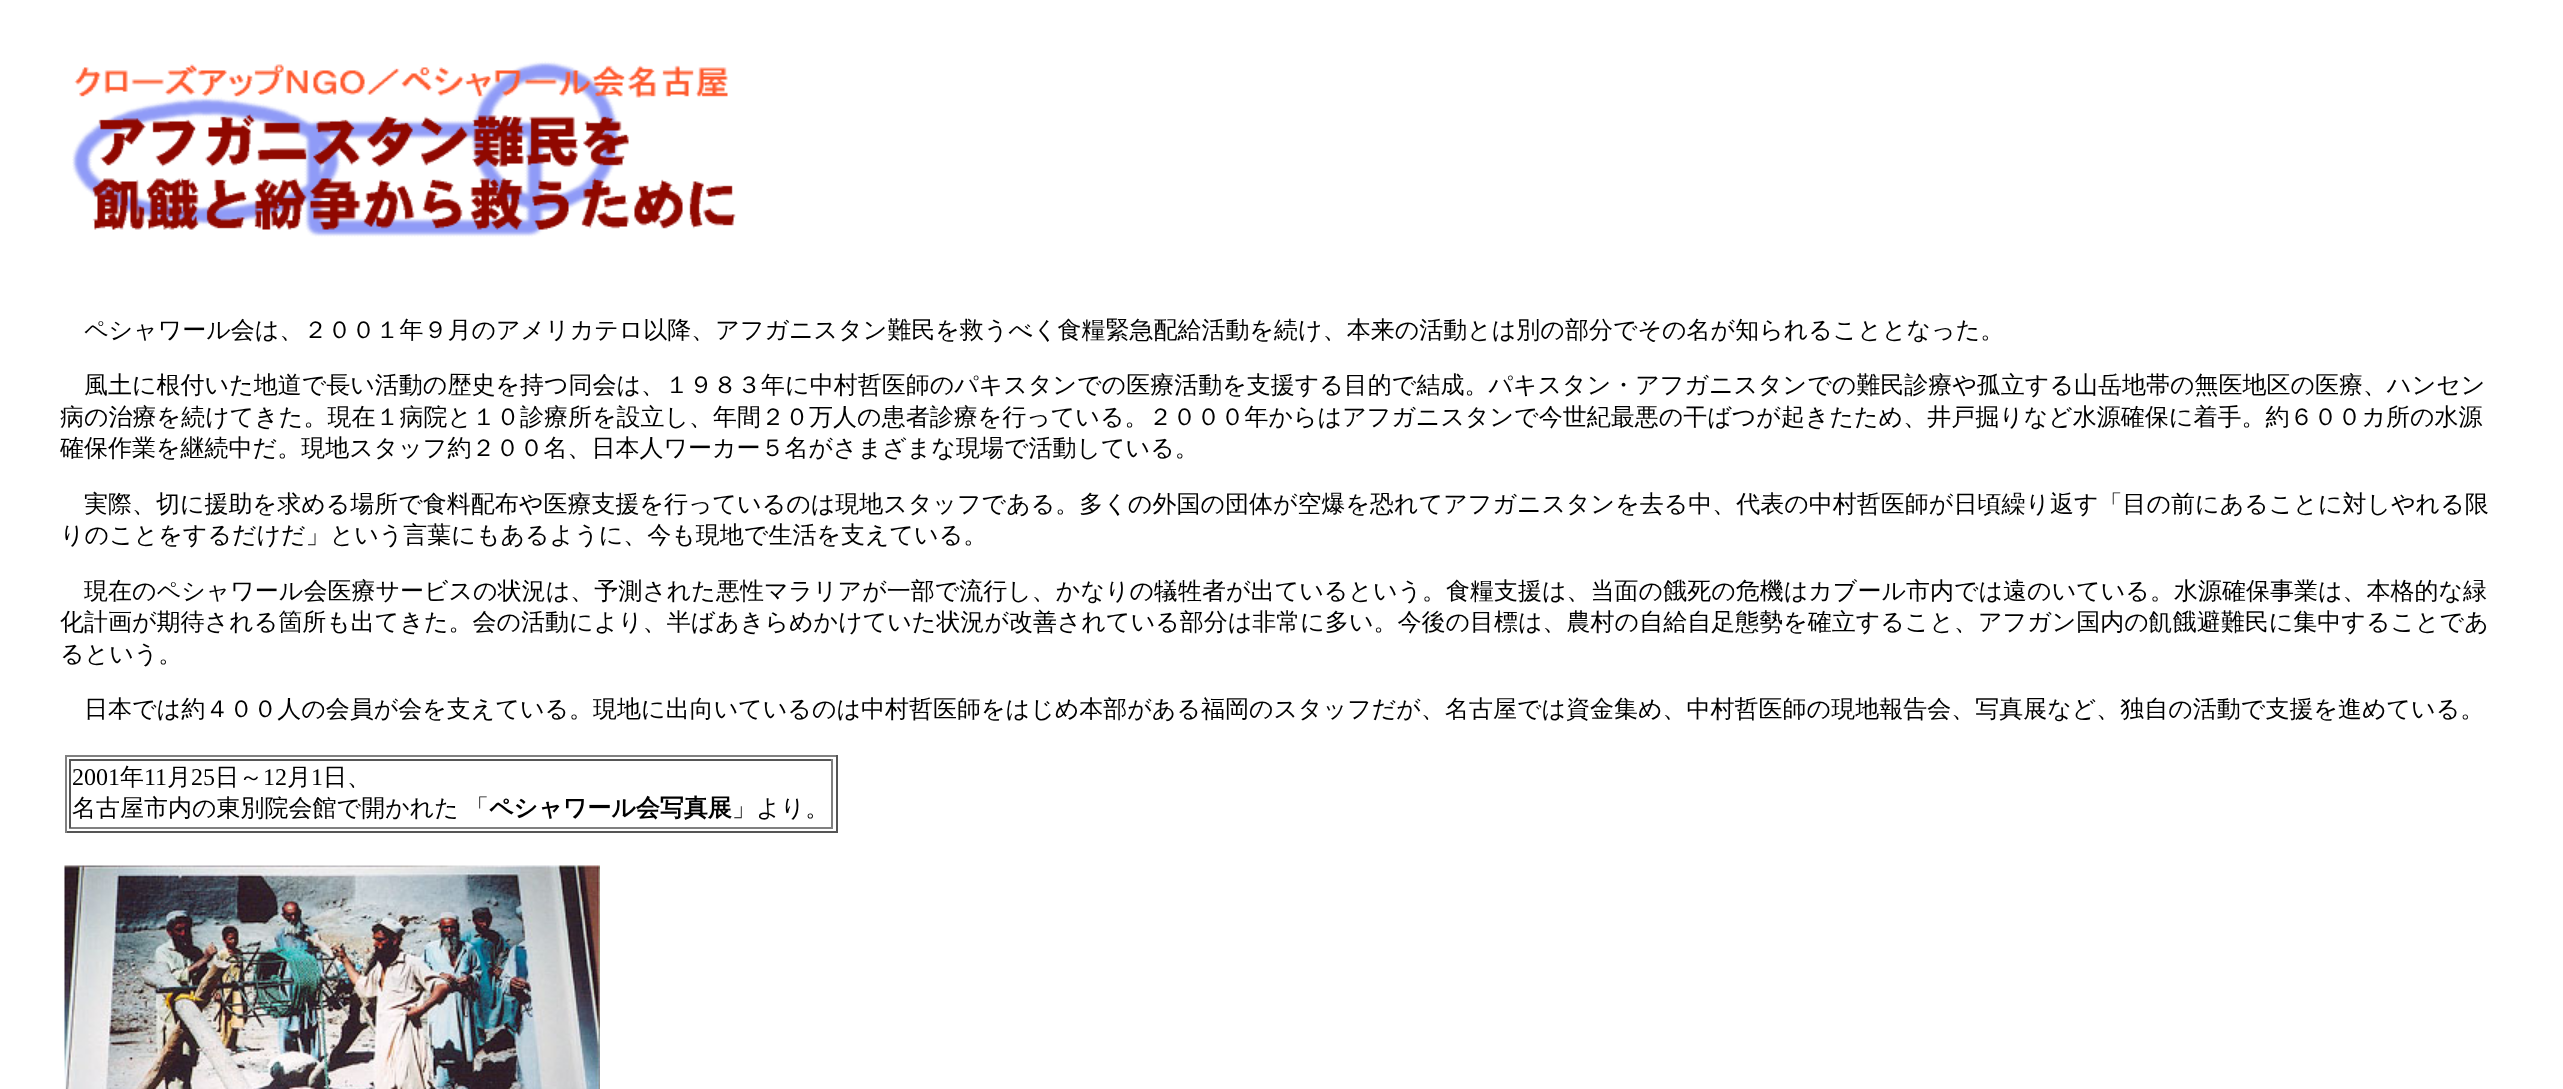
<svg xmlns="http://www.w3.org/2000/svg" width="2563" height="1089">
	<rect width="100%" height="100%" fill="#FFFFFF" />
	<image x="72" y="61" width="664" height="176" href="assets/img1.png" />
	<g font-family="WenQuanYi Zen Hei" font-size="24" font-weight="500" fill="#000000">
		<text x="84" y="338">ペシャワール会は、２００１年９月のアメリカテロ以降、アフガニスタン難民を救うべく食糧緊急配給活動を続け、本来の活動とは別の部分でその名が知られることとなった。</text>
		<text x="84" y="393">風土に根付いた地道で長い活動の歴史を持つ同会は、１９８３年に中村哲医師のパキスタンでの医療活動を支援する目的で結成。パキスタン・アフガニスタンでの難民診療や孤立する山岳地帯の無医地区の医療、ハンセン</text>
		<text x="60" y="425">病の治療を続けてきた。現在１病院と１０診療所を設立し、年間２０万人の患者診療を行っている。２０００年からはアフガニスタンで今世紀最悪の干ばつが起きたため、井戸掘りなど水源確保に着手。約６００カ所の水源</text>
		<text x="60" y="456">確保作業を継続中だ。現地スタッフ約２００名、日本人ワーカー５名がさまざまな現場で活動している。</text>
		<text x="84" y="512">実際、切に援助を求める場所で食料配布や医療支援を行っているのは現地スタッフである。多くの外国の団体が空爆を恐れてアフガニスタンを去る中、代表の中村哲医師が日頃繰り返す「目の前にあることに対しやれる限</text>
		<text x="60" y="543">りのことをするだけだ」という言葉にもあるように、今も現地で生活を支えている。</text>
		<text x="84" y="599">現在のペシャワール会医療サービスの状況は、予測された悪性マラリアが一部で流行し、かなりの犠牲者が出ているという。食糧支援は、当面の餓死の危機はカブール市内では遠のいている。水源確保事業は、本格的な緑</text>
		<text x="60" y="630">化計画が期待される箇所も出てきた。会の活動により、半ばあきらめかけていた状況が改善されている部分は非常に多い。今後の目標は、農村の自給自足態勢を確立すること、アフガン国内の飢餓避難民に集中することであ</text>
		<text x="60" y="662">るという。</text>
		<text x="84" y="717">日本では約４００人の会員が会を支えている。現地に出向いているのは中村哲医師をはじめ本部がある福岡のスタッフだが、名古屋では資金集め、中村哲医師の現地報告会、写真展など、独自の活動で支援を進めている。</text>
	</g>
	<rect x="65" y="755" width="772" height="2" fill="#808080" />
	<rect x="836" y="755" width="2" height="78" fill="#555555" />
	<rect x="65" y="831" width="772" height="2" fill="#555555" />
	<rect x="65" y="755" width="2" height="78" fill="#808080" />
	<rect x="69" y="759" width="764" height="2" fill="#555555" />
	<rect x="831" y="759" width="2" height="69" fill="#808080" />
	<rect x="69" y="827" width="764" height="2" fill="#808080" />
	<rect x="69" y="759" width="2" height="69" fill="#555555" />
	<text x="72" y="785" font-family="Liberation Serif" font-size="24" fill="#000000">2001</text>
	<text x="120" y="785" font-family="WenQuanYi Zen Hei" font-size="24" font-weight="500" fill="#000000">年</text>
	<text x="144" y="785" font-family="Liberation Serif" font-size="24" fill="#000000">11</text>
	<text x="167" y="785" font-family="WenQuanYi Zen Hei" font-size="24" font-weight="500" fill="#000000">月</text>
	<text x="191" y="785" font-family="Liberation Serif" font-size="24" fill="#000000">25</text>
	<text x="215" y="785" font-family="WenQuanYi Zen Hei" font-size="24" font-weight="500" fill="#000000">日～</text>
	<text x="263" y="785" font-family="Liberation Serif" font-size="24" fill="#000000">12</text>
	<text x="287" y="785" font-family="WenQuanYi Zen Hei" font-size="24" font-weight="500" fill="#000000">月</text>
	<text x="311" y="785" font-family="Liberation Serif" font-size="24" fill="#000000">1</text>
	<g font-family="WenQuanYi Zen Hei" font-size="24" font-weight="500" fill="#000000">
		<text x="323" y="785">日、</text>
		<text x="72" y="816" word-spacing="-1">名古屋市内の東別院会館で開かれた 「</text>
	</g>
	<text x="489" y="816" font-family="WenQuanYi Zen Hei" font-size="24" font-weight="700" fill="#000000">ペシャワール会写真展</text>
	<text x="732" y="816" font-family="WenQuanYi Zen Hei" font-size="24" font-weight="500" fill="#000000">」より。</text>
	<image x="64" y="865" width="536" height="224" href="assets/img2.png" />
</svg>
